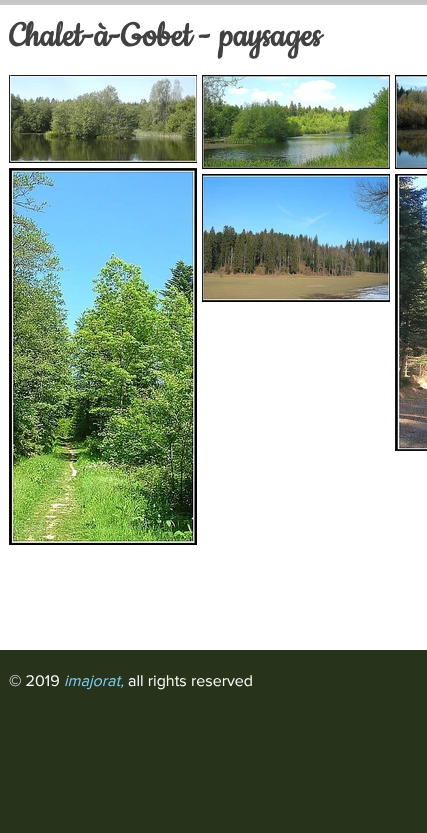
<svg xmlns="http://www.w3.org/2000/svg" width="427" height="833">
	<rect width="100%" height="100%" fill="#27331B" />
	<rect x="0" y="0" width="427" height="5" fill="#C7C7C7" />
	<rect x="0" y="5" width="427" height="645" fill="#FFFFFF" />
	<text x="9" y="46" font-family="Cookie" font-size="40" font-weight="700" fill="#414141">Chalet-à-Gobet - paysages</text>
	<image x="9" y="75" width="188" height="88" href="assets/img1.png" />
	<image x="202" y="75" width="188" height="94" href="assets/img2.png" />
	<image x="395" y="75" width="32" height="94" href="assets/img3.png" />
	<image x="9" y="168" width="188" height="377" href="assets/img4.png" />
	<image x="202" y="174" width="188" height="128" href="assets/img5.png" />
	<image x="395" y="174" width="32" height="277" href="assets/img6.png" />
	<text x="9" y="686" font-family="'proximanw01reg'" font-size="16" fill="#FFFFFF">© 2019</text>
	<text x="64" y="686" font-family="'proximanw01reg'" font-size="16" font-style="italic" fill="#7FCCF7">imajorat,</text>
	<text x="128" y="686" font-family="'proximanw01reg'" font-size="16" fill="#FFFFFF">all rights reserved</text>
</svg>
